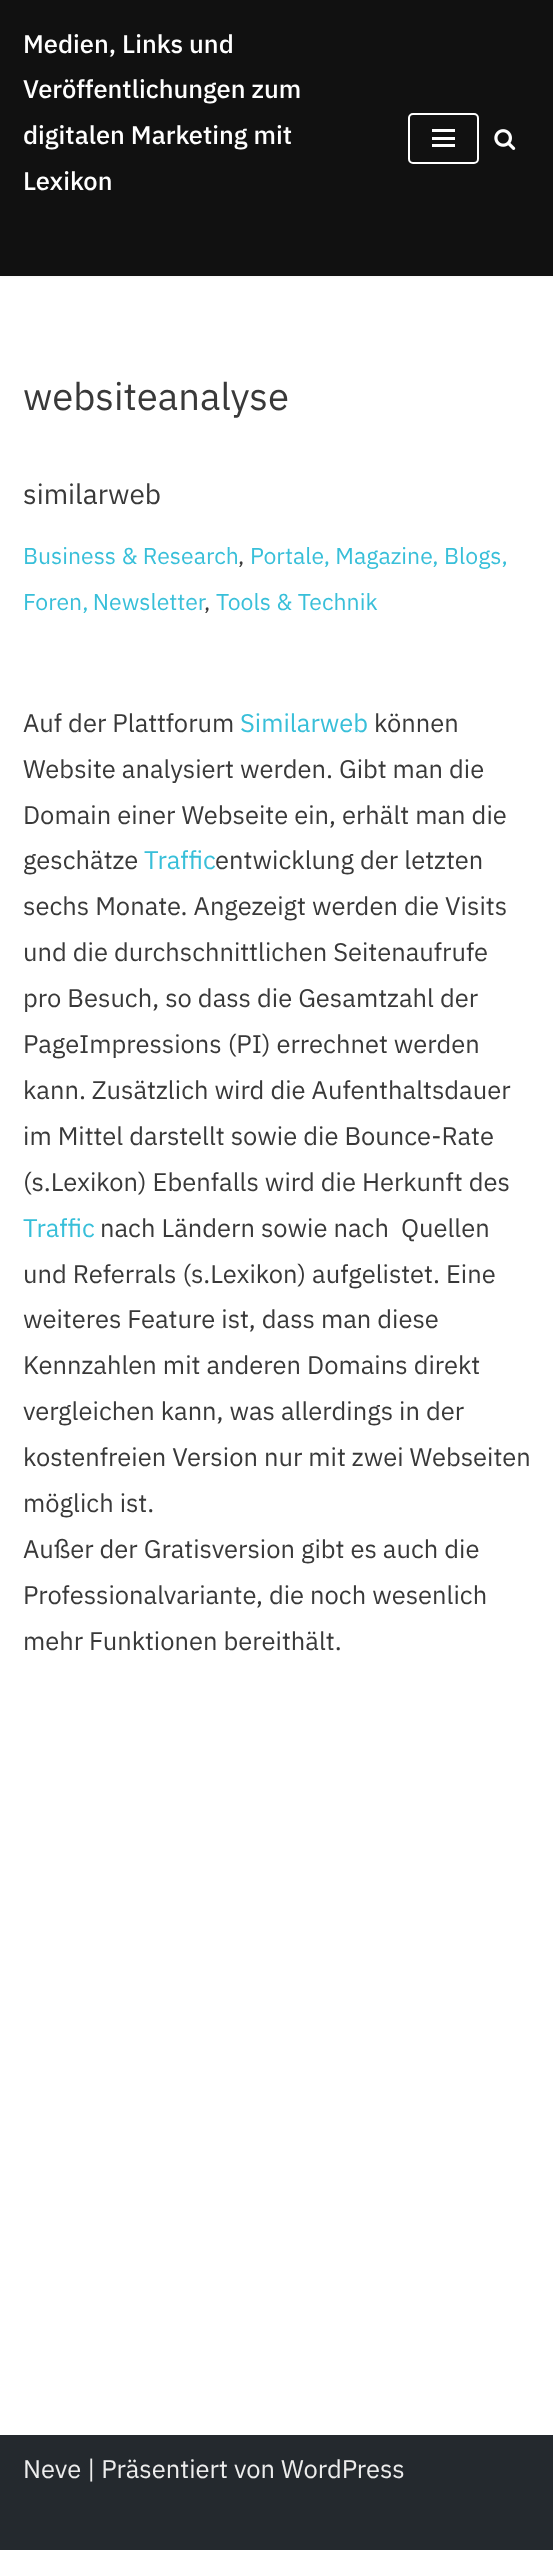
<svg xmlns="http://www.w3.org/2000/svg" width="553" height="2550">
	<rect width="100%" height="100%" fill="#FFFFFF" />
	<rect x="0" y="-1" width="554" height="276" fill="#000000" fill-opacity="0.1" filter="blur(2px)" />
	<rect x="0" y="0" width="553" height="276" fill="#111111" />
	<g font-family="IBM Plex Sans" font-size="25.5" font-weight="500" fill="#FFFFFF">
		<text x="23" y="53">Medien, Links und</text>
		<text x="23" y="98">Veröffentlichungen zum</text>
		<text x="23" y="144">digitalen Marketing mit</text>
		<text x="23" y="190">Lexikon</text>
	</g>
	<rect x="409" y="114" width="69" height="49" rx="4" fill="none" stroke="#FFFFFF" stroke-width="2" />
	<rect x="432" y="129" width="23" height="3" fill="#FFFFFF" />
	<rect x="432" y="137" width="23" height="3" fill="#FFFFFF" />
	<rect x="432" y="144" width="23" height="3" fill="#FFFFFF" />
	<image x="494" y="129" width="22" height="21" href="assets/img1.png" />
	<text x="23" y="410" font-family="IBM Plex Sans" font-size="38.25" fill="#393939">websiteanalyse</text>
	<text x="23" y="504" font-family="IBM Plex Sans" font-size="28" fill="#393939">similarweb</text>
	<text x="23" y="564" font-family="IBM Plex Sans" font-size="23" fill="#38BFD9">Business &amp; Research</text>
	<text x="238" y="564" font-family="IBM Plex Sans" font-size="23" fill="#393939">,</text>
	<g font-family="IBM Plex Sans" font-size="23" fill="#38BFD9">
		<text x="250" y="564">Portale, Magazine, Blogs,</text>
		<text x="23" y="610" word-spacing="-1">Foren, Newsletter</text>
	</g>
	<text x="204" y="610" font-family="IBM Plex Sans" font-size="23" fill="#393939">,</text>
	<text x="216" y="610" font-family="IBM Plex Sans" font-size="23" fill="#38BFD9">Tools &amp; Technik</text>
	<text x="23" y="732" font-family="IBM Plex Sans" font-size="25.5" fill="#393939">Auf der Plattforum</text>
	<text x="240" y="732" font-family="IBM Plex Sans" font-size="25.5" fill="#38BFD9">Similarweb</text>
	<g font-family="IBM Plex Sans" font-size="25.5" fill="#393939">
		<text x="374" y="732">können</text>
		<text x="23" y="778">Website analysiert werden. Gibt man die</text>
		<text x="23" y="824">Domain einer Webseite ein, erhält man die</text>
		<text x="23" y="869">geschätze</text>
	</g>
	<text x="144" y="869" font-family="IBM Plex Sans" font-size="25.5" fill="#38BFD9">Traffic</text>
	<g font-family="IBM Plex Sans" font-size="25.5" fill="#393939">
		<text x="215" y="869">entwicklung der letzten</text>
		<text x="23" y="915">sechs Monate. Angezeigt werden die Visits</text>
		<text x="23" y="961">und die durchschnittlichen Seitenaufrufe</text>
		<text x="23" y="1007">pro Besuch, so dass die Gesamtzahl der</text>
		<text x="23" y="1053">PageImpressions (PI) errechnet werden</text>
		<text x="23" y="1099">kann. Zusätzlich wird die Aufenthaltsdauer</text>
		<text x="23" y="1145">im Mittel darstellt sowie die Bounce-Rate</text>
		<text x="23" y="1191">(s.Lexikon) Ebenfalls wird die Herkunft des</text>
	</g>
	<text x="23" y="1237" font-family="IBM Plex Sans" font-size="25.5" fill="#38BFD9">Traffic</text>
	<g font-family="IBM Plex Sans" font-size="25.5" fill="#393939">
		<text x="100" y="1237" xml:space="preserve">nach Ländern sowie nach  Quellen</text>
		<text x="23" y="1283">und Referrals (s.Lexikon) aufgelistet. Eine</text>
		<text x="23" y="1328">weiteres Feature ist, dass man diese</text>
		<text x="23" y="1374">Kennzahlen mit anderen Domains direkt</text>
		<text x="23" y="1420">vergleichen kann, was allerdings in der</text>
		<text x="23" y="1466">kostenfreien Version nur mit zwei Webseiten</text>
		<text x="23" y="1512">möglich ist.</text>
		<text x="23" y="1558">Außer der Gratisversion gibt es auch die</text>
		<text x="23" y="1604">Professionalvariante, die noch wesenlich</text>
		<text x="23" y="1650">mehr Funktionen bereithält.</text>
	</g>
	<rect x="0" y="2435" width="553" height="115" fill="#24292E" />
	<text x="23" y="2478" font-family="IBM Plex Sans" font-size="25.5" fill="#EDEDED">Neve | Präsentiert von WordPress</text>
</svg>
